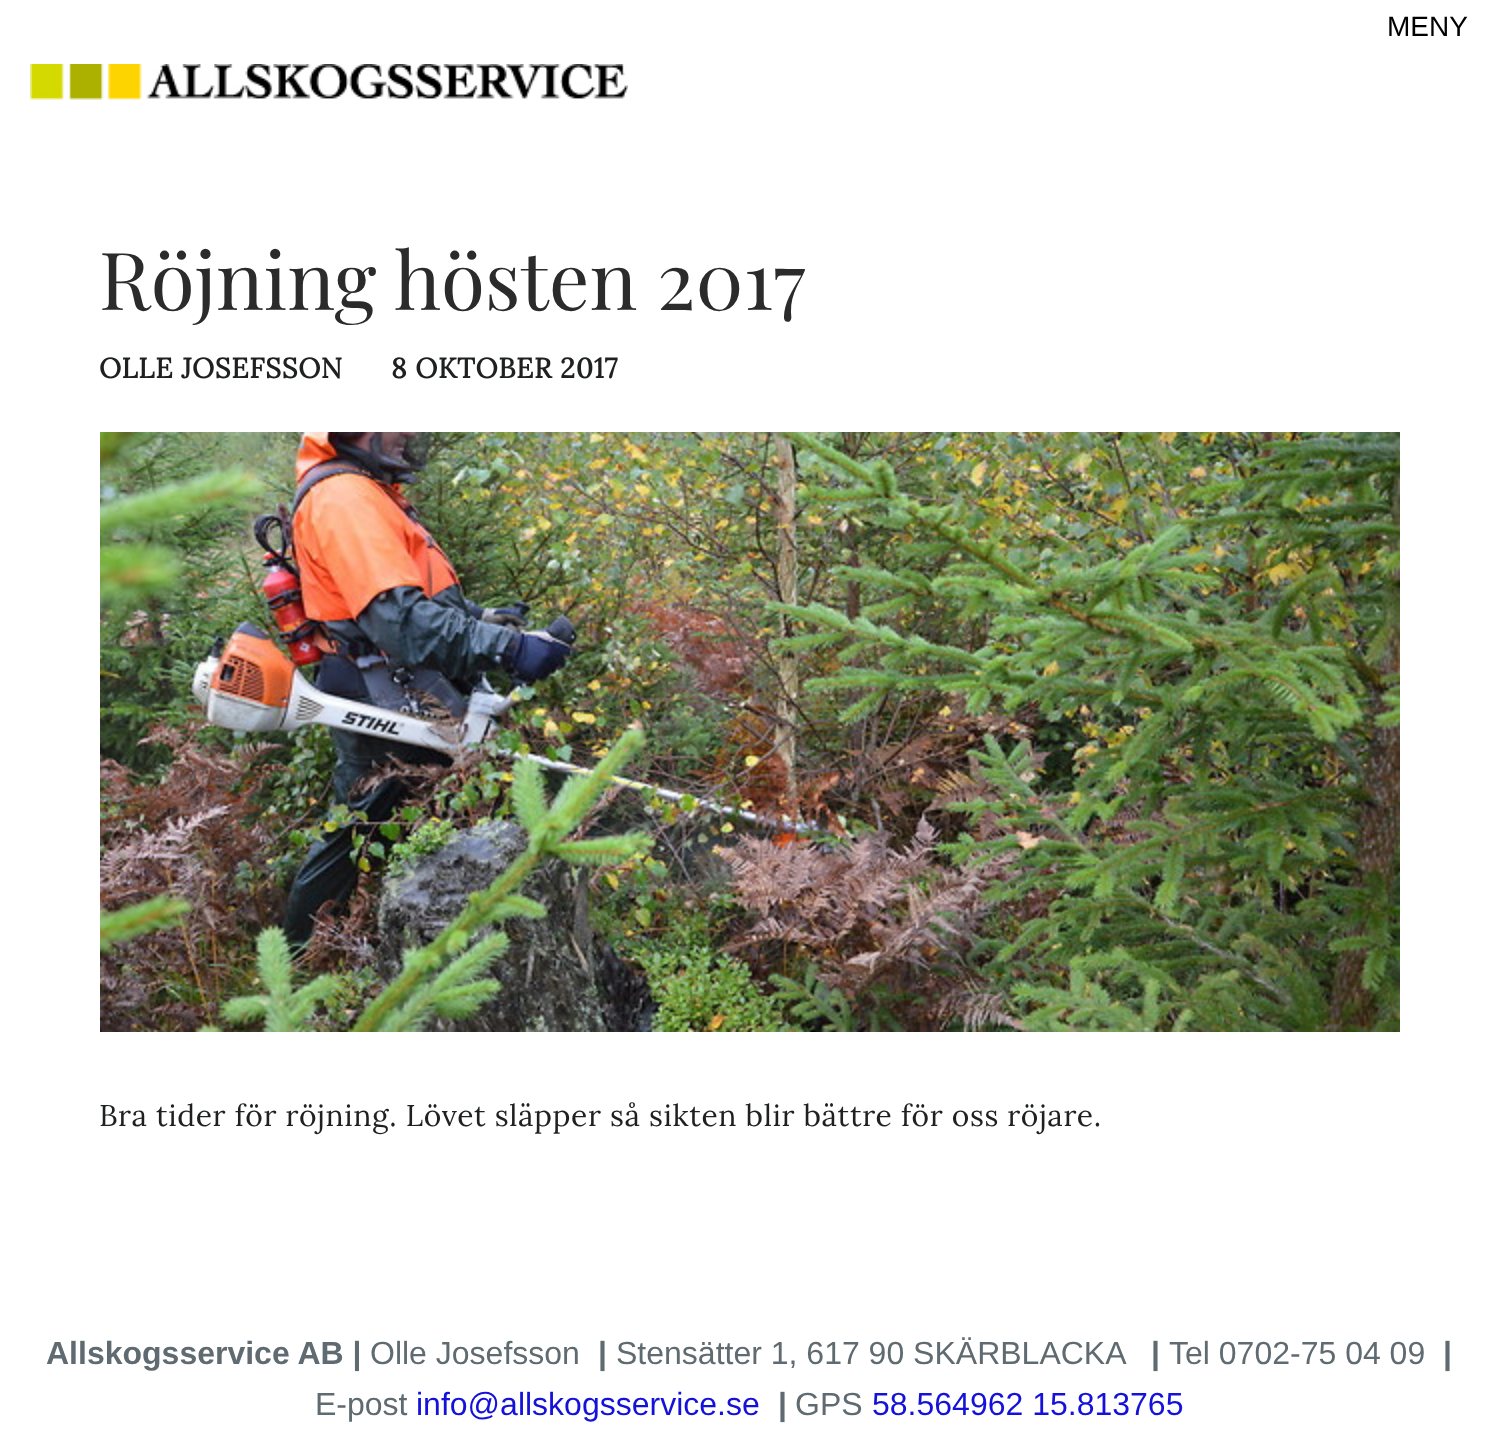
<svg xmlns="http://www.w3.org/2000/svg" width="1497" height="1431">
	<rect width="100%" height="100%" fill="#FFFFFF" />
	<text x="1387" y="36" font-family="Liberation Sans" font-size="28" fill="#000000">MENY</text>
	<image x="30" y="64" width="598" height="36" href="assets/img1.png" />
	<text x="99" y="310" font-family="Playfair Display" font-size="80" fill="#2B2B2B">Röjning hösten 2017</text>
	<g font-family="Lora" font-size="28" font-weight="700" letter-spacing="0.6" fill="#1F2021">
		<text x="99" y="378">OLLE JOSEFSSON</text>
		<text x="391" y="378">8 OKTOBER 2017</text>
	</g>
	<image x="100" y="432" width="1300" height="600" href="assets/img2.png" />
	<text x="99" y="1126" font-family="Lora" font-size="30" letter-spacing="0.6" fill="#1F2021">Bra tider för röjning. Lövet släpper så sikten blir bättre för oss röjare.</text>
	<text x="46" y="1364" font-family="Liberation Sans" font-size="32" font-weight="700" fill="#606B71">Allskogsservice AB |</text>
	<text x="370" y="1364" font-family="Liberation Sans" font-size="32" fill="#606B71">Olle Josefsson</text>
	<text x="598" y="1364" font-family="Liberation Sans" font-size="32" font-weight="700" fill="#606B71">|</text>
	<text x="616" y="1364" font-family="Liberation Sans" font-size="32" fill="#606B71">Stensätter 1, 617 90 SKÄRBLACKA</text>
	<text x="1151" y="1364" font-family="Liberation Sans" font-size="32" font-weight="700" fill="#606B71">|</text>
	<text x="1169" y="1364" font-family="Liberation Sans" font-size="32" fill="#606B71">Tel 0702-75 04 09</text>
	<text x="1443" y="1364" font-family="Liberation Sans" font-size="32" font-weight="700" fill="#606B71">|</text>
	<text x="315" y="1415" font-family="Liberation Sans" font-size="32" fill="#606B71">E-post</text>
	<text x="416" y="1415" font-family="Liberation Sans" font-size="32" fill="#1411D9">info@allskogsservice.se</text>
	<text x="778" y="1415" font-family="Liberation Sans" font-size="32" font-weight="700" fill="#606B71">|</text>
	<text x="795" y="1415" font-family="Liberation Sans" font-size="32" fill="#606B71">GPS</text>
	<text x="872" y="1415" font-family="Liberation Sans" font-size="32" fill="#1411D9">58.564962 15.813765</text>
</svg>
